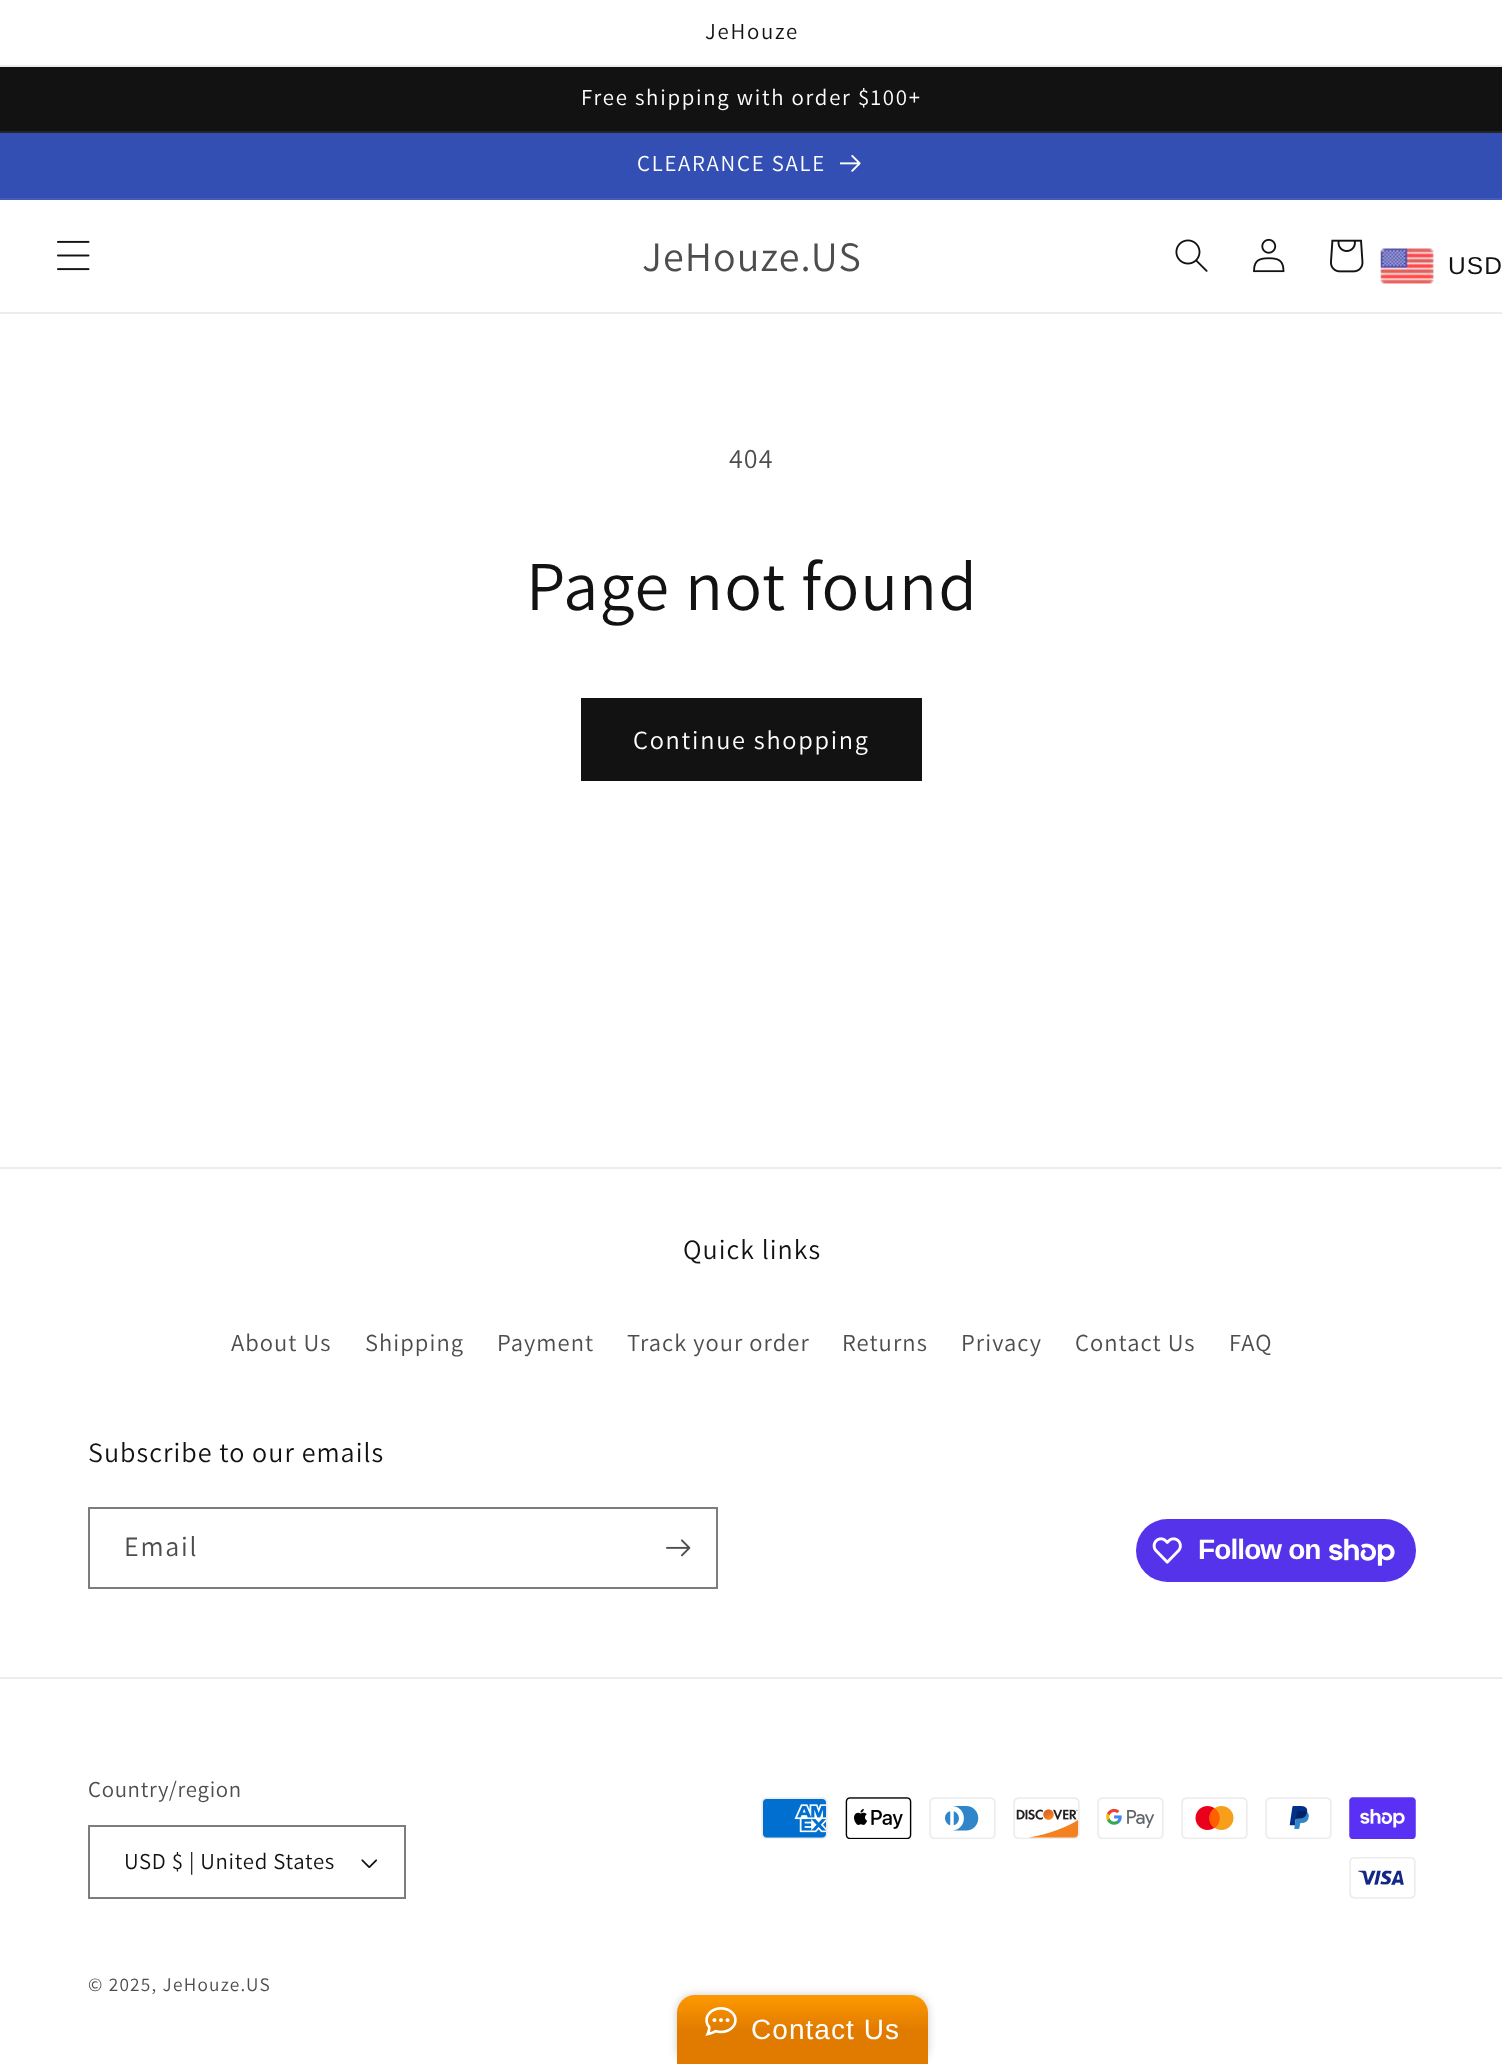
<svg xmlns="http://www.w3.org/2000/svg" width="1502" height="2064">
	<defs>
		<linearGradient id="g1" gradientUnits="userSpaceOnUse" x1="802" y1="1995" x2="802" y2="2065"><stop offset="0" stop-color="#FF9900" /><stop offset="0.5" stop-color="#E17B00" /></linearGradient>
	</defs>
	<rect width="100%" height="100%" fill="#FFFFFF" />
	<rect x="0" y="65" width="1502" height="2" fill="#ECECEC" />
	<text x="705" y="39" font-family="Assistant" font-size="22.75" letter-spacing="1.75" fill="#121212">JeHouze</text>
	<rect x="0" y="67" width="1502" height="64" fill="#121212" />
	<rect x="0" y="131" width="1502" height="2" fill="#252525" />
	<text x="581" y="105" font-family="Assistant" font-size="22.75" letter-spacing="1.75" fill="#FFFFFF">Free shipping with order $100+</text>
	<rect x="0" y="133" width="1502" height="65" fill="#334FB4" />
	<rect x="0" y="198" width="1502" height="2" fill="#435DBA" />
	<text x="637" y="171" font-family="Assistant" font-size="22.75" letter-spacing="1.75" fill="#FFFFFF">CLEARANCE SALE</text>
	<image x="840" y="155" width="21" height="17" href="assets/img1.png" />
	<rect x="0" y="312" width="1502" height="2" fill="#ECECEC" />
	<image x="57" y="240" width="33" height="31" href="assets/img2.png" />
	<text x="642" y="271" font-family="Assistant" font-size="42" letter-spacing="1.05" fill="#4D4D4D">JeHouze.US</text>
	<image x="1175" y="239" width="33" height="33" href="assets/img3.png" />
	<image x="1253" y="238" width="32" height="35" href="assets/img4.png" />
	<image x="1330" y="239" width="34" height="34" href="assets/img5.png" />
	<image x="1380" y="248" width="54" height="36" href="assets/img6.png" />
	<text x="1448" y="274" font-family="Liberation Sans" font-size="24.5" letter-spacing="1.05" fill="#121212">USD</text>
	<text x="729" y="468" font-family="Assistant" font-size="28" letter-spacing="1.05" fill="#4D4D4D">404</text>
	<text x="526" y="610" font-family="Assistant" font-size="70" letter-spacing="1.05" fill="#121212">Page not found</text>
	<rect x="581" y="698" width="341" height="83" fill="#121212" />
	<text x="633" y="749" font-family="Assistant" font-size="26.25" letter-spacing="1.75" fill="#FFFFFF">Continue shopping</text>
	<rect x="0" y="1167" width="1502" height="2" fill="#ECECEC" />
	<text x="683" y="1259" font-family="Assistant" font-size="28" letter-spacing="1.05" fill="#121212">Quick links</text>
	<g font-family="Assistant" font-size="24.5" letter-spacing="1.05" fill="#4D4D4D">
		<text x="231" y="1351">About Us</text>
		<text x="365" y="1351">Shipping</text>
		<text x="497" y="1351">Payment</text>
		<text x="627" y="1351">Track your order</text>
		<text x="842" y="1351">Returns</text>
		<text x="961" y="1351">Privacy</text>
		<text x="1075" y="1351">Contact Us</text>
		<text x="1229" y="1351">FAQ</text>
	</g>
	<text x="88" y="1462" font-family="Assistant" font-size="28" letter-spacing="1.05" fill="#121212">Subscribe to our emails</text>
	<rect x="89" y="1508" width="628" height="80" fill="none" stroke="#7D7D7D" stroke-width="2" />
	<text x="124" y="1556" font-family="Assistant" font-size="28" letter-spacing="1.75" fill="#4D4D4D">Email</text>
	<image x="666" y="1539" width="25" height="18" href="assets/img7.png" />
	<rect x="1136" y="1519" width="280" height="63" rx="31.5" fill="#5433EB" />
	<image x="1152" y="1537" width="30" height="27" href="assets/img8.png" />
	<text x="1198" y="1559" font-family="Liberation Sans" font-size="28" font-weight="700" letter-spacing="-0.9" fill="#FFFFFF">Follow on</text>
	<image x="1329" y="1538" width="66" height="28" href="assets/img9.png" />
	<rect x="0" y="1677" width="1502" height="2" fill="#ECECEC" />
	<text x="88" y="1797" font-family="Assistant" font-size="22.75" letter-spacing="0.7" fill="#4D4D4D">Country/region</text>
	<image x="361" y="1859" width="17" height="10" href="assets/img10.png" />
	<rect x="89" y="1826" width="316" height="72" fill="none" stroke="#7D7D7D" stroke-width="2" />
	<text x="124" y="1869" font-family="Assistant" font-size="22.75" letter-spacing="0.7" fill="#121212">USD $ | United States</text>
	<image x="761" y="1797" width="67" height="42" href="assets/img11.png" />
	<image x="845" y="1797" width="67" height="42" href="assets/img12.png" />
	<image x="929" y="1797" width="67" height="42" href="assets/img13.png" />
	<image x="1013" y="1797" width="67" height="42" href="assets/img14.png" />
	<image x="1097" y="1797" width="67" height="42" href="assets/img15.png" />
	<image x="1181" y="1797" width="67" height="42" href="assets/img16.png" />
	<image x="1265" y="1797" width="67" height="42" href="assets/img17.png" />
	<image x="1349" y="1797" width="67" height="42" href="assets/img18.png" />
	<image x="1349" y="1857" width="67" height="42" href="assets/img19.png" />
	<text x="88" y="1991" font-family="Assistant" font-size="19.25" letter-spacing="1.25" fill="#4D4D4D">© 2025, JeHouze.US</text>
	<rect x="677" y="1995" width="251" height="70" rx="18" fill="#000000" fill-opacity="0.2" filter="blur(4.5px)" />
	<path d="M695 1995H910C920 1995 928 2003 928 2013V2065H677V2013C677 2003 685 1995 695 1995Z" fill="url(#g1)" />
	<image x="705" y="2007" width="32" height="29" href="assets/img20.png" />
	<text x="751" y="2039" font-family="Liberation Sans" font-size="28" letter-spacing="1.05" fill="#FFFFFF">Contact Us</text>
</svg>
